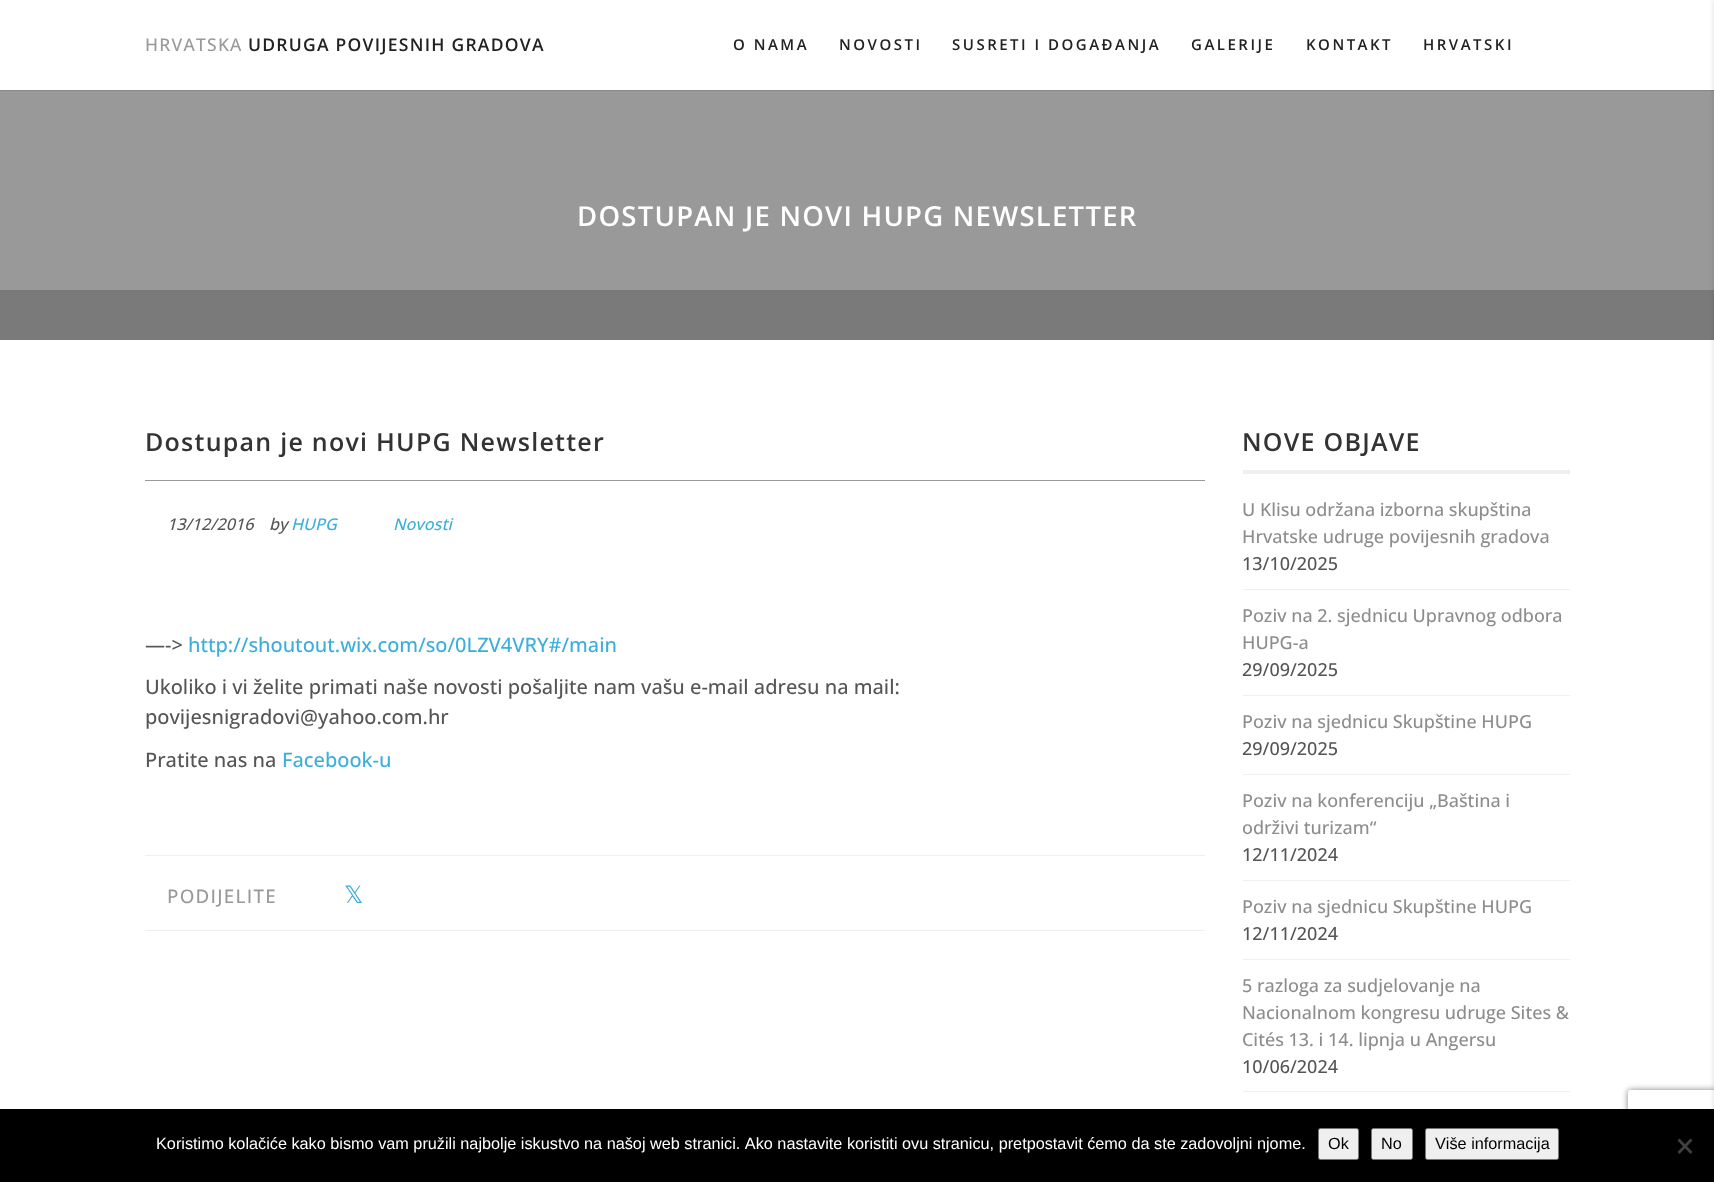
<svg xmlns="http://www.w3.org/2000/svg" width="1714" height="1182">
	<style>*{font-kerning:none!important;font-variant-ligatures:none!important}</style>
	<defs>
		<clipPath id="clip1"><rect x="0" y="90" width="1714" height="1" /></clipPath>
		<clipPath id="clip2"><path d="M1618 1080H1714V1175H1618ZM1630.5 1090H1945.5C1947 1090 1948 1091 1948 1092.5V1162.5C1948 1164 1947 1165 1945.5 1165H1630.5C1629 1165 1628 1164 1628 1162.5V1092.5C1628 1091 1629 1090 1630.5 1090Z" clip-rule="evenodd" /></clipPath>
	</defs>
	<rect width="100%" height="100%" fill="#FFFFFF" />
	<rect x="0" y="90" width="1714" height="200" fill="#999999" />
	<g clip-path="url(#clip1)">
		<rect x="0" y="1" width="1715" height="90" fill="#000000" fill-opacity="0.1" filter="blur(0.5px)" />
	</g>
	<text x="145" y="51" font-family="Open Sans" font-size="17.5" font-weight="500" letter-spacing="1.25" fill="#999999">HRVATSKA</text>
	<text x="248" y="51" font-family="Open Sans" font-size="17.5" font-weight="600" letter-spacing="1.25" fill="#222222">UDRUGA POVIJESNIH GRADOVA</text>
	<g font-family="Open Sans" font-size="15" font-weight="600" letter-spacing="2.5" fill="#222222">
		<text x="733" y="50">O NAMA</text>
		<text x="839" y="50">NOVOSTI</text>
		<text x="952" y="50">SUSRETI I DOGAĐANJA</text>
		<text x="1191" y="50">GALERIJE</text>
		<text x="1306" y="50">KONTAKT</text>
		<text x="1423" y="50">HRVATSKI</text>
	</g>
	<text x="577" y="226" font-family="Open Sans" font-size="27.5" font-weight="600" letter-spacing="1.25" fill="#FFFFFF">DOSTUPAN JE NOVI HUPG NEWSLETTER</text>
	<rect x="0" y="290" width="1714" height="50" fill="#7A7A7A" />
	<rect x="145" y="480" width="1060" height="1" fill="#999999" />
	<text x="145" y="451" font-family="Open Sans" font-size="25" font-weight="600" letter-spacing="1.25" fill="#333333">Dostupan je novi HUPG Newsletter</text>
	<g font-family="Open Sans" font-size="16.25" font-weight="500" font-style="italic" fill="#555555">
		<text x="167" y="530">13/12/2016</text>
		<text x="269" y="530">by</text>
	</g>
	<g font-family="Open Sans" font-size="16.25" font-weight="500" font-style="italic" fill="#3BAFDA">
		<text x="291" y="530">HUPG</text>
		<text x="393" y="530">Novosti</text>
	</g>
	<text x="145" y="652" font-family="Open Sans" font-size="20" font-weight="500" fill="#555555">—-&gt;</text>
	<text x="188" y="652" font-family="Open Sans" font-size="20" font-weight="500" fill="#3BAFDA">http://shoutout.wix.com/so/0LZV4VRY#/main</text>
	<g font-family="Open Sans" font-size="20" font-weight="500" fill="#555555">
		<text x="145" y="694">Ukoliko i vi želite primati naše novosti pošaljite nam vašu e-mail adresu na mail:</text>
		<text x="145" y="724">povijesnigradovi@yahoo.com.hr</text>
		<text x="145" y="767">Pratite nas na</text>
	</g>
	<text x="282" y="767" font-family="Open Sans" font-size="20" font-weight="500" fill="#3BAFDA">Facebook-u</text>
	<rect x="145" y="855" width="1060" height="1" fill="#EFEFEF" />
	<rect x="145" y="930" width="1060" height="1" fill="#EFEFEF" />
	<text x="167" y="903" font-family="Open Sans" font-size="18.75" font-weight="500" letter-spacing="1.25" fill="#999999">PODIJELITE</text>
	<text x="344" y="903" font-family="DejaVu Sans" font-size="24" fill="#3BAFDA">𝕏</text>
	<rect x="1243" y="470" width="327" height="4" fill="#EFEFEF" />
	<text x="1242" y="451" font-family="Open Sans" font-size="25" font-weight="600" letter-spacing="1.25" fill="#333333">NOVE OBJAVE</text>
	<rect x="1243" y="589" width="327" height="1" fill="#EFEFEF" />
	<g font-family="Open Sans" font-size="18" font-weight="500" fill="#8D8D8D">
		<text x="1242" y="516">U Klisu održana izborna skupština</text>
		<text x="1242" y="543">Hrvatske udruge povijesnih gradova</text>
	</g>
	<text x="1242" y="570" font-family="Open Sans" font-size="18" font-weight="500" fill="#555555">13/10/2025</text>
	<rect x="1243" y="695" width="327" height="1" fill="#EFEFEF" />
	<g font-family="Open Sans" font-size="18" font-weight="500" fill="#8D8D8D">
		<text x="1242" y="622">Poziv na 2. sjednicu Upravnog odbora</text>
		<text x="1242" y="649">HUPG-a</text>
	</g>
	<text x="1242" y="676" font-family="Open Sans" font-size="18" font-weight="500" fill="#555555">29/09/2025</text>
	<rect x="1243" y="774" width="327" height="1" fill="#EFEFEF" />
	<text x="1242" y="728" font-family="Open Sans" font-size="18" font-weight="500" fill="#8D8D8D">Poziv na sjednicu Skupštine HUPG</text>
	<text x="1242" y="755" font-family="Open Sans" font-size="18" font-weight="500" fill="#555555">29/09/2025</text>
	<rect x="1243" y="880" width="327" height="1" fill="#EFEFEF" />
	<g font-family="Open Sans" font-size="18" font-weight="500" fill="#8D8D8D">
		<text x="1242" y="807">Poziv na konferenciju „Baština i</text>
		<text x="1242" y="834">održivi turizam“</text>
	</g>
	<text x="1242" y="861" font-family="Open Sans" font-size="18" font-weight="500" fill="#555555">12/11/2024</text>
	<rect x="1243" y="959" width="327" height="1" fill="#EFEFEF" />
	<text x="1242" y="913" font-family="Open Sans" font-size="18" font-weight="500" fill="#8D8D8D">Poziv na sjednicu Skupštine HUPG</text>
	<text x="1242" y="940" font-family="Open Sans" font-size="18" font-weight="500" fill="#555555">12/11/2024</text>
	<rect x="1243" y="1091" width="327" height="1" fill="#EFEFEF" />
	<g font-family="Open Sans" font-size="18" font-weight="500" fill="#8D8D8D">
		<text x="1242" y="992">5 razloga za sudjelovanje na</text>
		<text x="1242" y="1019">Nacionalnom kongresu udruge Sites &amp;</text>
		<text x="1242" y="1046">Cités 13. i 14. lipnja u Angersu</text>
	</g>
	<text x="1242" y="1073" font-family="Open Sans" font-size="18" font-weight="500" fill="#555555">10/06/2024</text>
	<rect x="1713" y="0" width="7" height="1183" fill="#000000" fill-opacity="0.1" filter="blur(2px)" />
	<g clip-path="url(#clip2)">
		<rect x="1628" y="1090" width="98" height="75" rx="2.5" fill="#808080" filter="blur(3px)" />
	</g>
	<rect x="0" y="1109" width="1714" height="73" fill="#000000" />
	<text x="156" y="1149" font-family="Liberation Sans" font-size="16.25" fill="#FFFFFF">Koristimo kolačiće kako bismo vam pružili najbolje iskustvo na našoj web stranici. Ako nastavite koristiti ovu stranicu, pretpostavit ćemo da ste zadovoljni njome.</text>
	<rect x="1318.5" y="1128.5" width="40" height="31" rx="2" fill="#EFEFEF" stroke="#767676" />
	<text x="1328" y="1149" font-family="Liberation Sans" font-size="16.25" fill="#000000">Ok</text>
	<rect x="1371.5" y="1128.5" width="41" height="31" rx="2" fill="#EFEFEF" stroke="#767676" />
	<text x="1381" y="1149" font-family="Liberation Sans" font-size="16.25" fill="#000000">No</text>
	<rect x="1425.5" y="1128.5" width="133" height="31" rx="2" fill="#EFEFEF" stroke="#767676" />
	<text x="1435" y="1149" font-family="Liberation Sans" font-size="16.25" fill="#000000">Više informacija</text>
	<path d="M1690.5 1138.5L1692.5 1140.5L1679.5 1154L1677.5 1152Z" fill="#404040" />
	<path d="M1677.5 1140.5L1679.5 1138.5L1692.5 1152L1690.5 1154Z" fill="#404040" />
</svg>
